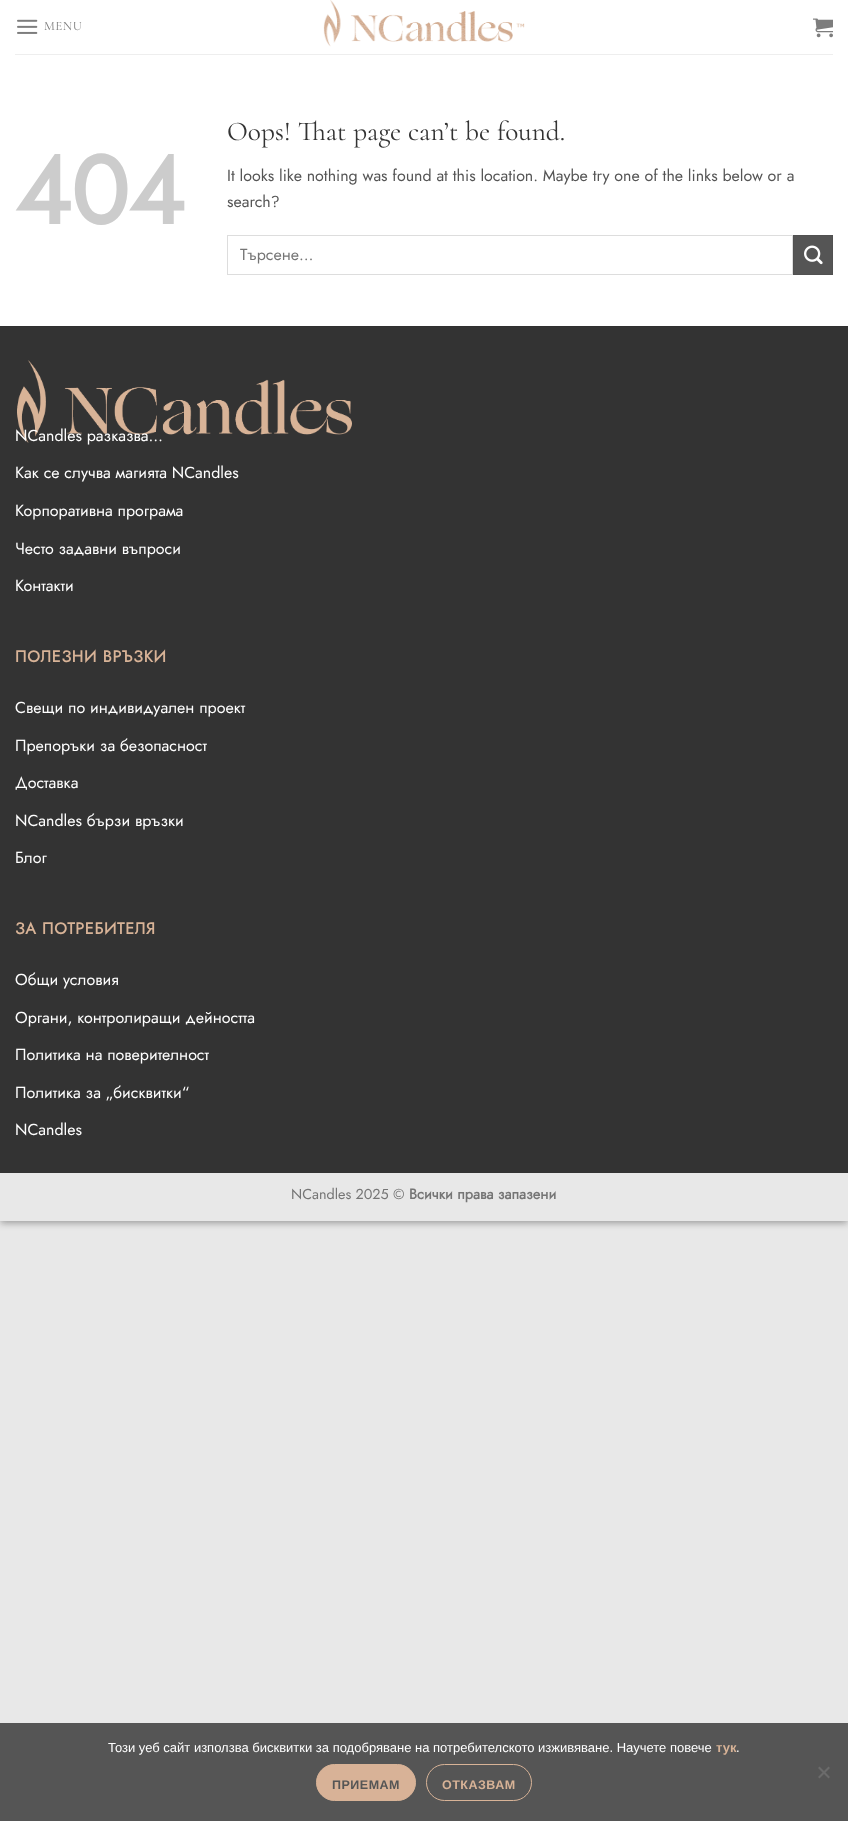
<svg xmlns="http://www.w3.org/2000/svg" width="848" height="1821">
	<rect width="100%" height="100%" fill="#E8E8E8" />
	<rect x="0" y="3" width="848" height="1221" fill="#000000" fill-opacity="0.23" filter="blur(3px)" />
	<rect x="4" y="7" width="840" height="1213" fill="#000000" fill-opacity="0.16" filter="blur(3px)" />
	<rect x="0" y="0" width="848" height="326" fill="#FFFFFF" />
	<image x="17" y="19" width="21" height="15" href="assets/img1.png" />
	<text x="44" y="30" font-family="Cormorant" font-size="13" font-weight="300" letter-spacing="0.5" fill="#7D7D7D">MENU</text>
	<image x="323" y="0" width="202" height="47" href="assets/img2.png" />
	<image x="813" y="18" width="20" height="20" href="assets/img3.png" />
	<rect x="15" y="54" width="818" height="1" fill="#EEEEEE" />
	<text x="15" y="224" font-family="Jost" font-size="96" font-weight="700" fill="#CCCCCC">404</text>
	<text x="227" y="140" word-spacing="0.5" font-family="Cormorant" font-size="27.25" font-weight="300" fill="#333333">Oops! That page can’t be found.</text>
	<g font-family="Jost" font-size="16" fill="#555555">
		<text x="227" y="181">It looks like nothing was found at this location. Maybe try one of the links below or a</text>
		<text x="227" y="207">search?</text>
	</g>
	<rect x="227.5" y="235.5" width="565" height="39" fill="none" stroke="#DDDDDD" />
	<text x="240" y="260" font-family="Jost" font-size="16" fill="#757575">Търсене…</text>
	<rect x="793.5" y="235.5" width="39" height="39" fill="#555555" stroke="#515151" />
	<image x="804" y="245" width="19" height="20" href="assets/img4.png" />
	<rect x="0" y="327" width="848" height="846" fill="#333333" />
	<rect x="0" y="326" width="848" height="1" fill="#303030" />
	<image x="17" y="360" width="335" height="83" href="assets/img5.png" />
	<g font-family="Jost" font-size="16" fill="#FFFFFF">
		<text x="15" y="441">NCandles разказва…</text>
		<text x="15" y="478">Как се случва магията NCandles</text>
		<text x="15" y="516">Корпоративна програма</text>
		<text x="15" y="554">Често задавни въпроси</text>
		<text x="15" y="591">Контакти</text>
	</g>
	<text x="15" y="662" font-family="Jost" font-size="16" font-weight="700" letter-spacing="0.75" fill="#D8B397">ПОЛЕЗНИ ВРЪЗКИ</text>
	<g font-family="Jost" font-size="16" fill="#FFFFFF">
		<text x="15" y="713">Свещи по индивидуален проект</text>
		<text x="15" y="751">Препоръки за безопасност</text>
		<text x="15" y="788">Доставка</text>
		<text x="15" y="826">NCandles бързи връзки</text>
		<text x="15" y="863">Блог</text>
	</g>
	<text x="15" y="934" font-family="Jost" font-size="16" font-weight="700" letter-spacing="0.75" fill="#D8B397">ЗА ПОТРЕБИТЕЛЯ</text>
	<g font-family="Jost" font-size="16" fill="#FFFFFF">
		<text x="15" y="985">Общи условия</text>
		<text x="15" y="1023">Oргани, контролиращи дейността</text>
		<text x="15" y="1060">Политика на поверителност</text>
		<text x="15" y="1098">Политика за „бисквитки“</text>
		<text x="15" y="1135">NCandles</text>
	</g>
	<rect x="0" y="1173" width="848" height="48" fill="#E8E8E8" />
	<text x="291" y="1199" font-family="Jost" font-size="14.4" fill="#757575">NCandles 2025 ©</text>
	<text x="409" y="1199" font-family="Jost" font-size="14.4" font-weight="700" fill="#757575">Всички права запазени</text>
	<rect x="0" y="1723" width="848" height="98" fill="#555555" />
	<text x="108" y="1752" font-family="Liberation Sans" font-size="13" fill="#FFFFFF">Този уеб сайт използва бисквитки за подобряване на потребителското изживяване. Научете повече</text>
	<text x="716" y="1752" font-family="Liberation Sans" font-size="13" font-weight="700" fill="#D8B397">тук</text>
	<text x="736" y="1752" font-family="Liberation Sans" font-size="13" fill="#FFFFFF">.</text>
	<path d="M828.5 1766.5L830 1768L819.5 1778.5L818 1777Z" fill="#6B6B6B" />
	<path d="M818 1768L819.5 1766.5L830 1777L828.5 1778.5Z" fill="#6B6B6B" />
	<rect x="316.5" y="1764.5" width="99" height="36" rx="18" fill="#D8B297" stroke="#D8B397" />
	<text x="332" y="1789" font-family="Liberation Sans" font-size="12.5" font-weight="700" letter-spacing="0.5" fill="#555555">ПРИЕМАМ</text>
	<rect x="426.5" y="1764.5" width="105" height="36" rx="18" fill="none" stroke="#D8B397" />
	<text x="442" y="1789" font-family="Liberation Sans" font-size="12.5" font-weight="700" letter-spacing="0.5" fill="#D8B397">ОТКАЗВАМ</text>
</svg>
